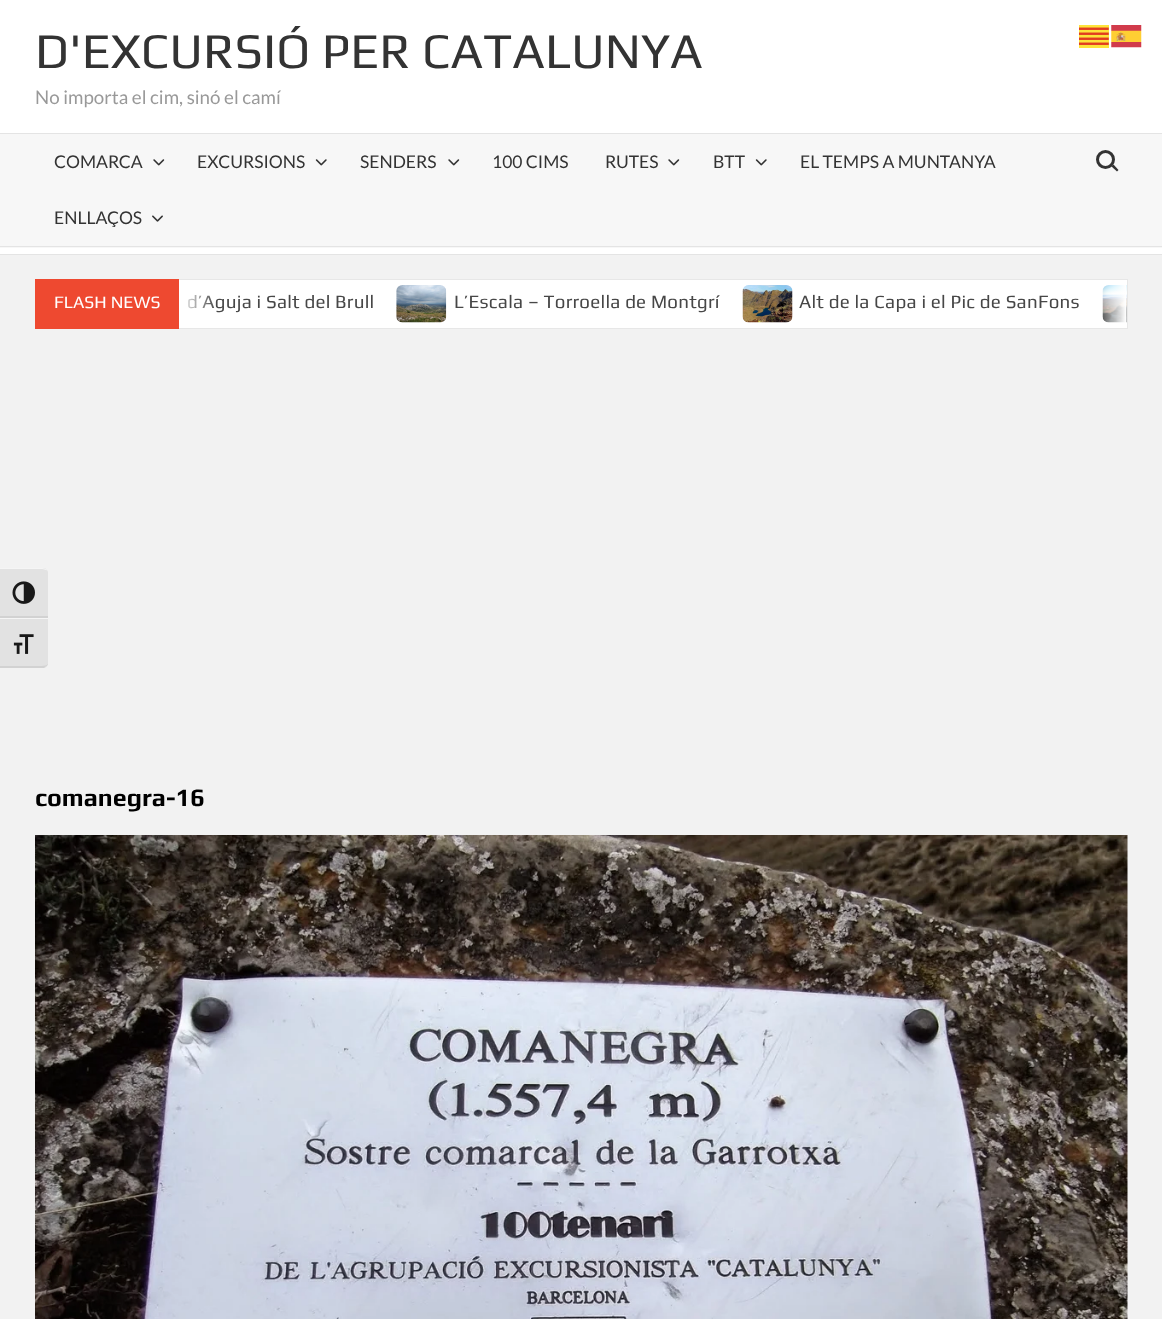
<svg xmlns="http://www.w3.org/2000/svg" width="1162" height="1319">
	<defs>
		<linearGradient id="g1" gradientUnits="userSpaceOnUse" x1="179" y1="304" x2="216" y2="304"><stop offset="0" stop-color="#FFFFFF" /><stop offset="1" stop-color="#FFFFFF" stop-opacity="0" /></linearGradient>
		<linearGradient id="g2" gradientUnits="userSpaceOnUse" x1="1089" y1="304" x2="1126" y2="304"><stop offset="0" stop-color="#FFFFFF" stop-opacity="0" /><stop offset="1" stop-color="#FFFFFF" /></linearGradient>
	</defs>
	<rect width="100%" height="100%" fill="#F2F2F2" />
	<rect x="0" y="0" width="1162" height="133" fill="#FFFFFF" />
	<text x="35" y="68" font-family="Play" font-size="50" fill="#333333">D'EXCURSIÓ PER CATALUNYA</text>
	<text x="35" y="104" font-family="Lato" font-size="18.75" fill="#999999">No importa el cim, sinó el camí</text>
	<path d="M0 254V255H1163V134H1162V254Z" fill="#E4E4E4" />
	<rect x="0" y="134" width="1162" height="114" fill="#F7F7F7" />
	<rect x="0" y="248" width="1162" height="6" fill="#FFFFFF" />
	<rect x="0" y="133" width="1162" height="1" fill="#E4E4E4" />
	<rect x="0" y="246" width="1162" height="1" fill="#E4E4E4" />
	<text x="54" y="168" font-family="Lato" font-size="17.5" fill="#333333">COMARCA</text>
	<image x="153" y="159" width="12" height="7" href="assets/img1.png" />
	<text x="197" y="168" font-family="Lato" font-size="17.5" fill="#333333">EXCURSIONS</text>
	<image x="315" y="159" width="12" height="7" href="assets/img2.png" />
	<text x="360" y="168" font-family="Lato" font-size="17.5" fill="#333333">SENDERS</text>
	<image x="448" y="159" width="12" height="7" href="assets/img1.png" />
	<g font-family="Lato" font-size="17.5" fill="#333333">
		<text x="492" y="168">100 CIMS</text>
		<text x="605" y="168">RUTES</text>
	</g>
	<image x="668" y="159" width="12" height="7" href="assets/img1.png" />
	<text x="713" y="168" font-family="Lato" font-size="17.5" fill="#333333">BTT</text>
	<image x="755" y="159" width="12" height="7" href="assets/img2.png" />
	<g font-family="Lato" font-size="17.5" fill="#333333">
		<text x="800" y="168">EL TEMPS A MUNTANYA</text>
		<text x="54" y="224">ENLLAÇOS</text>
	</g>
	<image x="152" y="215" width="11" height="7" href="assets/img3.png" />
	<circle cx="1105.5" cy="159.5" r="8" fill="none" stroke="#333333" stroke-width="3" />
	<path d="M1113.5 164.5L1118.5 170L1117 171.5L1111.5 166.5Z" fill="#333333" />
	<rect x="179" y="280" width="948" height="48" fill="#FFFFFF" />
	<rect x="35.5" y="279.5" width="1092" height="49" fill="none" stroke="#E7E7E7" />
	<rect x="35" y="279" width="144" height="50" fill="#EE4930" />
	<text x="54" y="308" font-family="Play" font-size="17.5" fill="#FFFFFF">FLASH NEWS</text>
	<text x="187" y="308" font-family="Play" font-size="18.75" letter-spacing="0.25" fill="#474747">d’Aguja i Salt del Brull</text>
	<rect x="187" y="294" width="27" height="15" fill="url(#g1)" />
	<image x="396" y="285" width="51" height="38" href="assets/img4.png" />
	<text x="454" y="308" font-family="Play" font-size="18.75" letter-spacing="0.25" fill="#474747">L’Escala – Torroella de Montgrí</text>
	<image x="742" y="285" width="51" height="38" href="assets/img5.png" />
	<text x="799" y="308" font-family="Play" font-size="18.75" letter-spacing="0.25" fill="#474747">Alt de la Capa i el Pic de SanFons</text>
	<image x="1102" y="285" width="25" height="38" href="assets/img6.png" />
	<rect x="1102" y="285" width="24" height="38" fill="url(#g2)" />
	<text x="35" y="806" font-family="Play" font-size="25" font-weight="700" fill="#000000">comanegra-16</text>
	<image x="35" y="835" width="1093" height="484" href="assets/img7.png" />
	<image x="1079" y="25" width="30" height="23" href="assets/img8.png" />
	<image x="1111" y="25" width="31" height="23" href="assets/img9.png" />
	<path d="M0 568H43C46 568 48 570 48 573V618H0Z" fill="#E2E2E2" />
	<path d="M0 569H42C44 569 47 570 48 571C47 569 44 568 42 568H0Z" fill="#F5F5F5" />
	<rect x="0" y="616" width="48" height="2" fill="#D2D2D2" />
	<image x="12" y="581" width="23" height="23" href="assets/img10.png" />
	<path d="M0 618H48V663C48 666 46 668 43 668H0Z" fill="#E2E2E2" />
	<rect x="0" y="618" width="48" height="1" fill="#F5F5F5" />
	<path d="M48 664C47 665 44 666 42 666H0V668H44C45 667 48 665 48 664Z" fill="#D2D2D2" />
	<image x="13" y="634" width="21" height="20" href="assets/img11.png" />
</svg>
